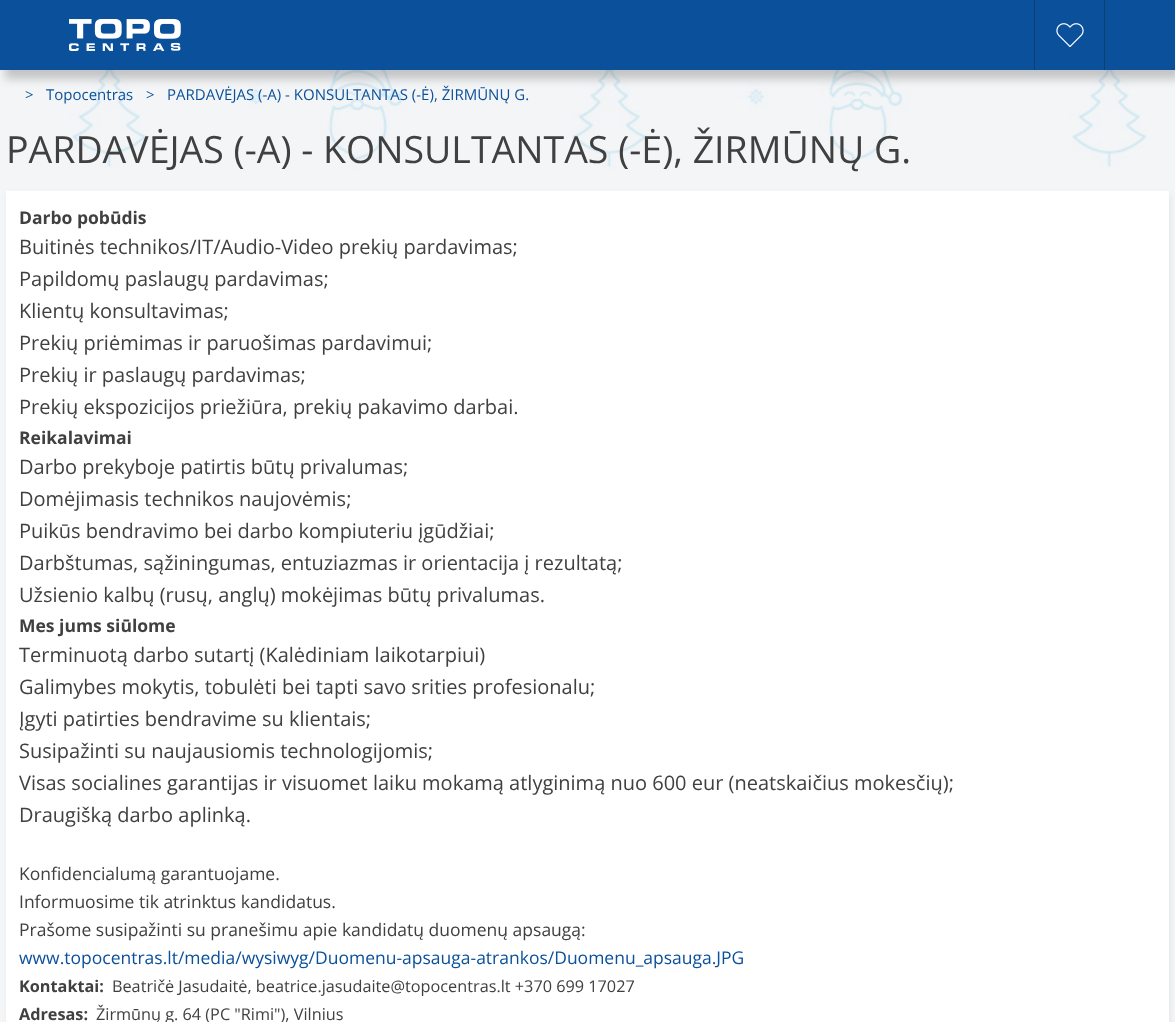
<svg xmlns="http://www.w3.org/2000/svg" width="1175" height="1022">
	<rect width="100%" height="100%" fill="#F3F5F7" />
	<image x="47" y="70" width="1100" height="121" href="assets/img1.png" />
	<rect x="5" y="9" width="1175" height="70" fill="#000000" fill-opacity="0.2" filter="blur(5px)" />
	<rect x="0" y="0" width="1175" height="70" fill="#0A509B" />
	<image x="69" y="19" width="112" height="32" href="assets/img2.png" />
	<rect x="1034" y="0" width="1" height="70" fill="#0B3F76" />
	<image x="1056" y="23" width="28" height="25" href="assets/img3.png" />
	<rect x="1104" y="0" width="1" height="70" fill="#0B3F76" />
	<g font-family="Open Sans" font-size="15" fill="#0A509B">
		<text x="25" y="100">&gt;</text>
		<text x="46" y="100">Topocentras</text>
		<text x="146" y="100">&gt;</text>
		<text x="167" y="100">PARDAVĖJAS (-A) - KONSULTANTAS (-Ė), ŽIRMŪNŲ G.</text>
	</g>
	<text x="6" y="163" font-family="Open Sans" font-size="37.5" fill="#404040">PARDAVĖJAS (-A) - KONSULTANTAS (-Ė), ŽIRMŪNŲ G.</text>
	<rect x="8" y="195" width="1162" height="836" fill="#000000" fill-opacity="0.07" filter="blur(3px)" />
	<rect x="6" y="191" width="1163" height="831" fill="#FFFFFF" />
	<text x="19" y="224" font-family="Open Sans" font-size="17.5" font-weight="700" fill="#404040">Darbo pobūdis</text>
	<g font-family="Open Sans" font-size="20" fill="#404040">
		<text x="19" y="254">Buitinės technikos/IT/Audio-Video prekių pardavimas;</text>
		<text x="19" y="286">Papildomų paslaugų pardavimas;</text>
		<text x="19" y="318">Klientų konsultavimas;</text>
		<text x="19" y="350">Prekių priėmimas ir paruošimas pardavimui;</text>
		<text x="19" y="382">Prekių ir paslaugų pardavimas;</text>
		<text x="19" y="414">Prekių ekspozicijos priežiūra, prekių pakavimo darbai.</text>
	</g>
	<text x="19" y="444" font-family="Open Sans" font-size="17.5" font-weight="700" fill="#404040">Reikalavimai</text>
	<g font-family="Open Sans" font-size="20" fill="#404040">
		<text x="19" y="474">Darbo prekyboje patirtis būtų privalumas;</text>
		<text x="19" y="506">Domėjimasis technikos naujovėmis;</text>
		<text x="19" y="538">Puikūs bendravimo bei darbo kompiuteriu įgūdžiai;</text>
		<text x="19" y="570">Darbštumas, sąžiningumas, entuziazmas ir orientacija į rezultatą;</text>
		<text x="19" y="602">Užsienio kalbų (rusų, anglų) mokėjimas būtų privalumas.</text>
	</g>
	<text x="19" y="632" font-family="Open Sans" font-size="17.5" font-weight="700" fill="#404040">Mes jums siūlome</text>
	<g font-family="Open Sans" font-size="20" fill="#404040">
		<text x="19" y="662">Terminuotą darbo sutartį (Kalėdiniam laikotarpiui)</text>
		<text x="19" y="694">Galimybes mokytis, tobulėti bei tapti savo srities profesionalu;</text>
		<text x="19" y="726">Įgyti patirties bendravime su klientais;</text>
		<text x="19" y="758">Susipažinti su naujausiomis technologijomis;</text>
		<text x="19" y="790">Visas socialines garantijas ir visuomet laiku mokamą atlyginimą nuo 600 eur (neatskaičius mokesčių);</text>
		<text x="19" y="822">Draugišką darbo aplinką.</text>
	</g>
	<g font-family="Open Sans" font-size="17.5" fill="#404040">
		<text x="19" y="880">Konfidencialumą garantuojame.</text>
		<text x="19" y="908">Informuosime tik atrinktus kandidatus.</text>
		<text x="19" y="936">Prašome susipažinti su pranešimu apie kandidatų duomenų apsaugą:</text>
	</g>
	<text x="19" y="964" font-family="Open Sans" font-size="17.5" fill="#0A509B">www.topocentras.lt/media/wysiwyg/Duomenu-apsauga-atrankos/Duomenu_apsauga.JPG</text>
	<text x="19" y="992" font-family="Open Sans" font-size="16.25" font-weight="700" fill="#404040">Kontaktai:</text>
	<text x="112" y="992" font-family="Open Sans" font-size="16.25" fill="#404040">Beatričė Jasudaitė, beatrice.jasudaite@topocentras.lt +370 699 17027</text>
	<text x="19" y="1020" font-family="Open Sans" font-size="16.25" font-weight="700" fill="#404040">Adresas:</text>
	<text x="96" y="1020" font-family="Open Sans" font-size="16.25" fill="#404040">Žirmūnų g. 64 (PC "Rimi"), Vilnius</text>
</svg>
